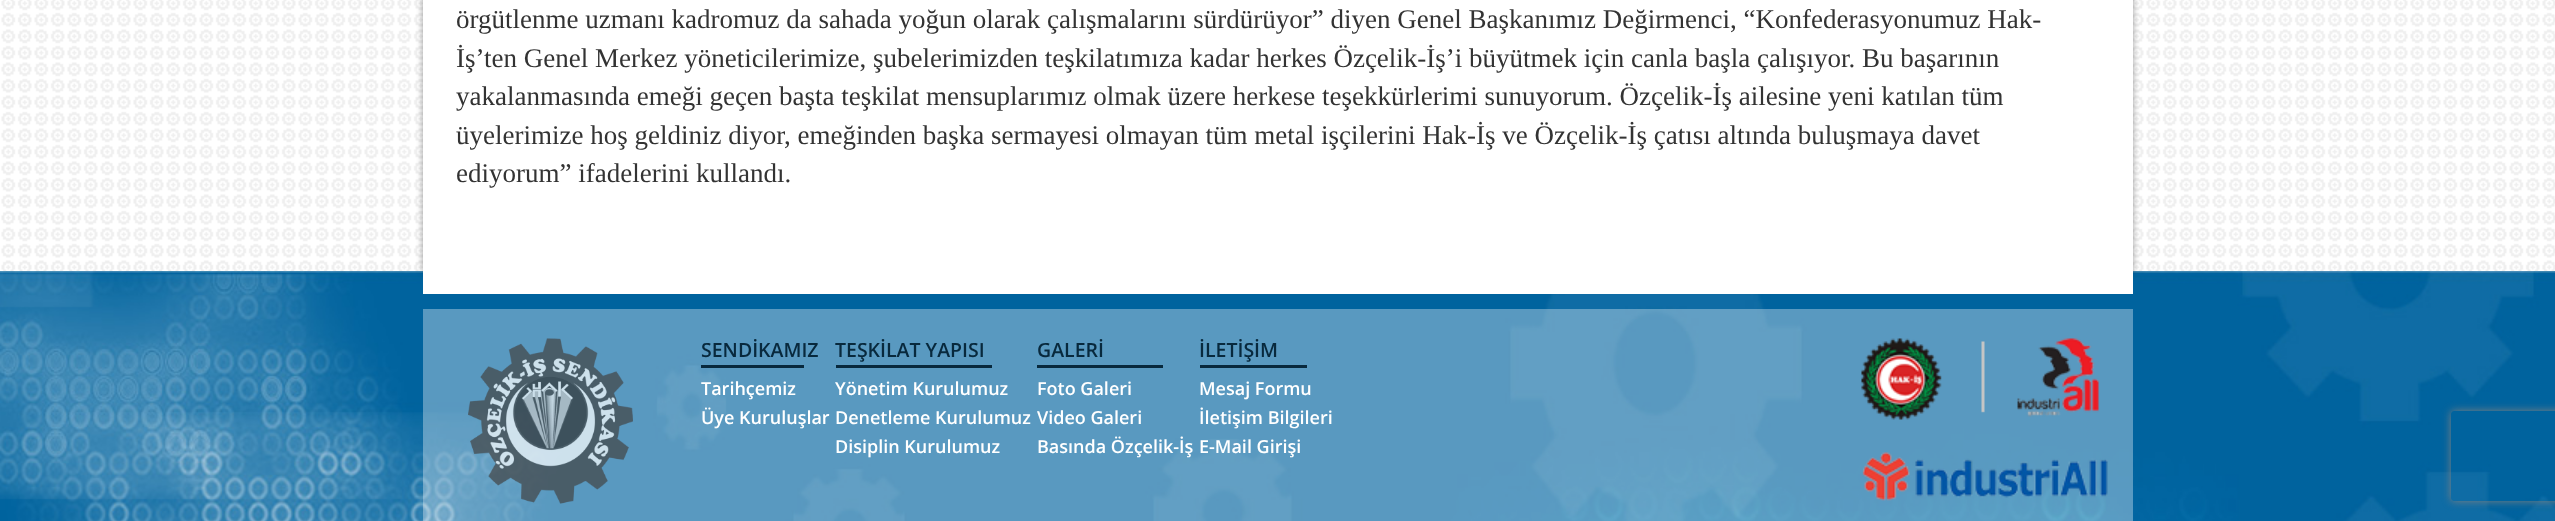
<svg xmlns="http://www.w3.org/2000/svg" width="2555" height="521">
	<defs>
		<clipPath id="clip1"><path d="M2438 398H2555V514H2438ZM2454 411H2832C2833.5 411 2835 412.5 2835 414V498C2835 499.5 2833.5 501 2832 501H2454C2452.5 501 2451 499.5 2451 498V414C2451 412.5 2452.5 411 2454 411Z" clip-rule="evenodd" /></clipPath>
	</defs>
	<rect width="100%" height="100%" fill="#FFFFFF" />
	<image x="1" y="0" width="2554" height="271" href="assets/img1.png" />
	<image x="0" y="271" width="2555" height="250" href="assets/img2.png" />
	<rect x="423" y="-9" width="1710" height="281" fill="#000000" fill-opacity="0.4" filter="blur(3px)" />
	<rect x="423" y="0" width="1710" height="294" fill="#FFFFFF" />
	<g font-family="Liberation Serif" font-size="27" fill="#333333">
		<text x="456" y="28">örgütlenme uzmanı kadromuz da sahada yoğun olarak çalışmalarını sürdürüyor” diyen Genel Başkanımız Değirmenci, “Konfederasyonumuz Hak-</text>
		<text x="456" y="67">İş’ten Genel Merkez yöneticilerimize, şubelerimizden teşkilatımıza kadar herkes Özçelik-İş’i büyütmek için canla başla çalışıyor. Bu başarının</text>
		<text x="456" y="105">yakalanmasında emeği geçen başta teşkilat mensuplarımız olmak üzere herkese teşekkürlerimi sunuyorum. Özçelik-İş ailesine yeni katılan tüm</text>
		<text x="456" y="144">üyelerimize hoş geldiniz diyor, emeğinden başka sermayesi olmayan tüm metal işçilerini Hak-İş ve Özçelik-İş çatısı altında buluşmaya davet</text>
		<text x="456" y="182">ediyorum” ifadelerini kullandı.</text>
	</g>
	<rect x="423" y="309" width="1710" height="212" fill="#FFFFFF" fill-opacity="0.35" />
	<image x="468" y="338" width="165" height="166" href="assets/img3.png" />
	<text x="701" y="357" font-family="Open Sans" font-size="19.5" font-weight="600" fill="#08293D">SENDİKAMIZ</text>
	<rect x="701" y="365" width="103" height="3" fill="#08293D" />
	<g font-family="Open Sans" font-size="18" font-weight="600" fill="#FFFFFF">
		<text x="701" y="395">Tarihçemiz</text>
		<text x="701" y="424">Üye Kuruluşlar</text>
	</g>
	<text x="835" y="357" font-family="Open Sans" font-size="19.5" font-weight="600" fill="#08293D">TEŞKİLAT YAPISI</text>
	<rect x="836" y="365" width="156" height="3" fill="#08293D" />
	<g font-family="Open Sans" font-size="18" font-weight="600" fill="#FFFFFF">
		<text x="835" y="395">Yönetim Kurulumuz</text>
		<text x="835" y="424">Denetleme Kurulumuz</text>
		<text x="835" y="453">Disiplin Kurulumuz</text>
	</g>
	<text x="1037" y="357" font-family="Open Sans" font-size="19.5" font-weight="600" fill="#08293D">GALERİ</text>
	<rect x="1037" y="365" width="126" height="3" fill="#08293D" />
	<g font-family="Open Sans" font-size="18" font-weight="600" fill="#FFFFFF">
		<text x="1037" y="395">Foto Galeri</text>
		<text x="1037" y="424">Video Galeri</text>
		<text x="1037" y="453">Basında Özçelik-İş</text>
	</g>
	<text x="1199" y="357" font-family="Open Sans" font-size="19.5" font-weight="600" fill="#08293D">İLETİŞİM</text>
	<rect x="1200" y="365" width="107" height="3" fill="#08293D" />
	<g font-family="Open Sans" font-size="18" font-weight="600" fill="#FFFFFF">
		<text x="1199" y="395">Mesaj Formu</text>
		<text x="1199" y="424">İletişim Bilgileri</text>
		<text x="1199" y="453">E-Mail Girişi</text>
	</g>
	<image x="1861" y="338" width="247" height="163" href="assets/img4.png" />
	<g clip-path="url(#clip1)">
		<rect x="2451" y="411" width="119" height="90" rx="3" fill="#808080" filter="blur(4px)" />
	</g>
</svg>
